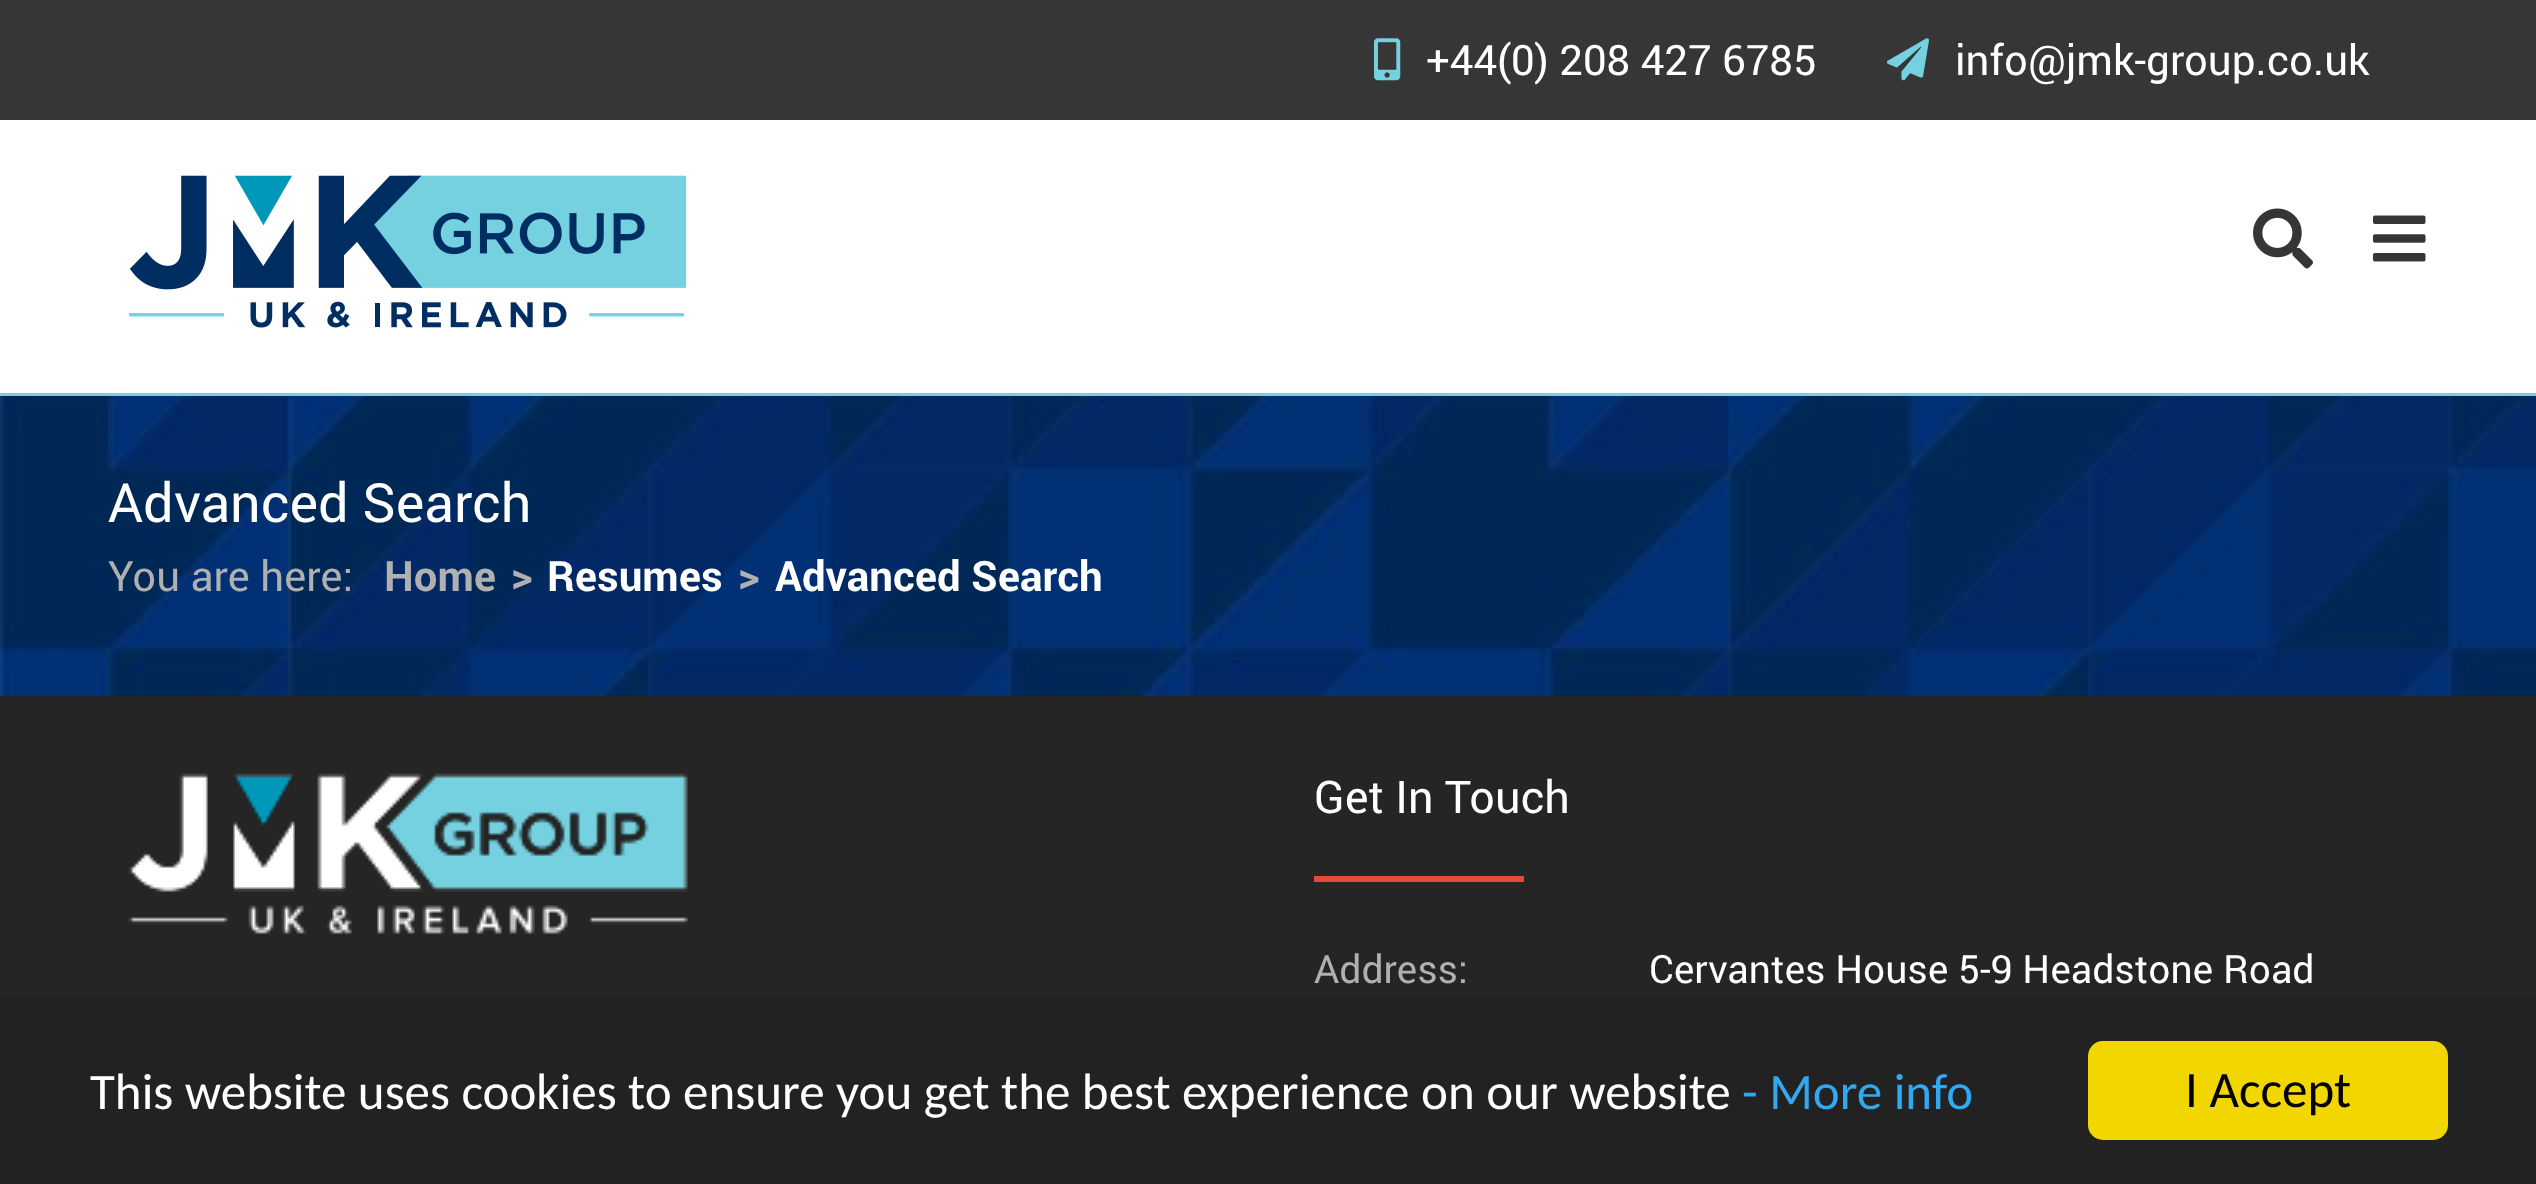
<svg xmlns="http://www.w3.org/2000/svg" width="2536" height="1184">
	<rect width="100%" height="100%" fill="#FFFFFF" />
	<rect x="0" y="393" width="2536" height="3" fill="#75D0DF" />
	<rect x="0" y="0" width="2536" height="120" fill="#363636" />
	<image x="1374" y="38" width="27" height="43" href="assets/img1.png" />
	<text x="1426" y="75" font-family="Roboto" font-size="42" fill="#FFFFFF">+44(0) 208 427 6785</text>
	<image x="1887" y="38" width="42" height="43" href="assets/img2.png" />
	<text x="1955" y="75" font-family="Roboto" font-size="42" fill="#FFFFFF">info@jmk-group.co.uk</text>
	<image x="129" y="175" width="558" height="153" href="assets/img3.png" />
	<image x="2253" y="208" width="60" height="61" href="assets/img4.png" />
	<image x="2373" y="215" width="53" height="47" href="assets/img5.png" />
	<image x="0" y="396" width="2536" height="300" href="assets/img6.png" />
	<text x="108" y="522" font-family="Roboto" font-size="54" fill="#FFFFFF">Advanced Search</text>
	<text x="108" y="591" font-family="Roboto" font-size="42" fill="#B0B0B0">You are here:</text>
	<g font-family="Roboto" font-size="42" font-weight="700" fill="#B0B0B0">
		<text x="384" y="591">Home</text>
		<text x="511" y="591">&gt;</text>
	</g>
	<text x="547" y="591" font-family="Roboto" font-size="42" font-weight="700" fill="#FFFFFF">Resumes</text>
	<text x="738" y="591" font-family="Roboto" font-size="42" font-weight="700" fill="#B0B0B0">&gt;</text>
	<text x="775" y="591" font-family="Roboto" font-size="42" font-weight="700" fill="#FFFFFF">Advanced Search</text>
	<rect x="0" y="696" width="2536" height="300" fill="#252525" />
	<image x="128" y="773" width="560" height="161" href="assets/img7.png" />
	<text x="1314" y="813" font-family="Roboto" font-size="45" fill="#FFFFFF">Get In Touch</text>
	<rect x="1314" y="876" width="210" height="6" fill="#E5493A" />
	<text x="1314" y="983" font-family="Roboto" font-size="39" fill="#B0B0B0">Address:</text>
	<text x="1649" y="983" font-family="Roboto" font-size="39" fill="#FFFFFF">Cervantes House 5-9 Headstone Road</text>
	<rect x="0" y="996" width="2536" height="188" fill="#222222" />
	<text x="90" y="1109" font-family="Carlito" font-size="51" fill="#FFFFFF">This website uses cookies to ensure you get the best experience on our website</text>
	<text x="1742" y="1109" font-family="Carlito" font-size="51" fill="#31A8F0">- More info</text>
	<rect x="2088" y="1041" width="360" height="99" rx="15" fill="#F1D600" />
	<text x="2185" y="1107" font-family="Carlito" font-size="51" fill="#000000">I Accept</text>
</svg>
